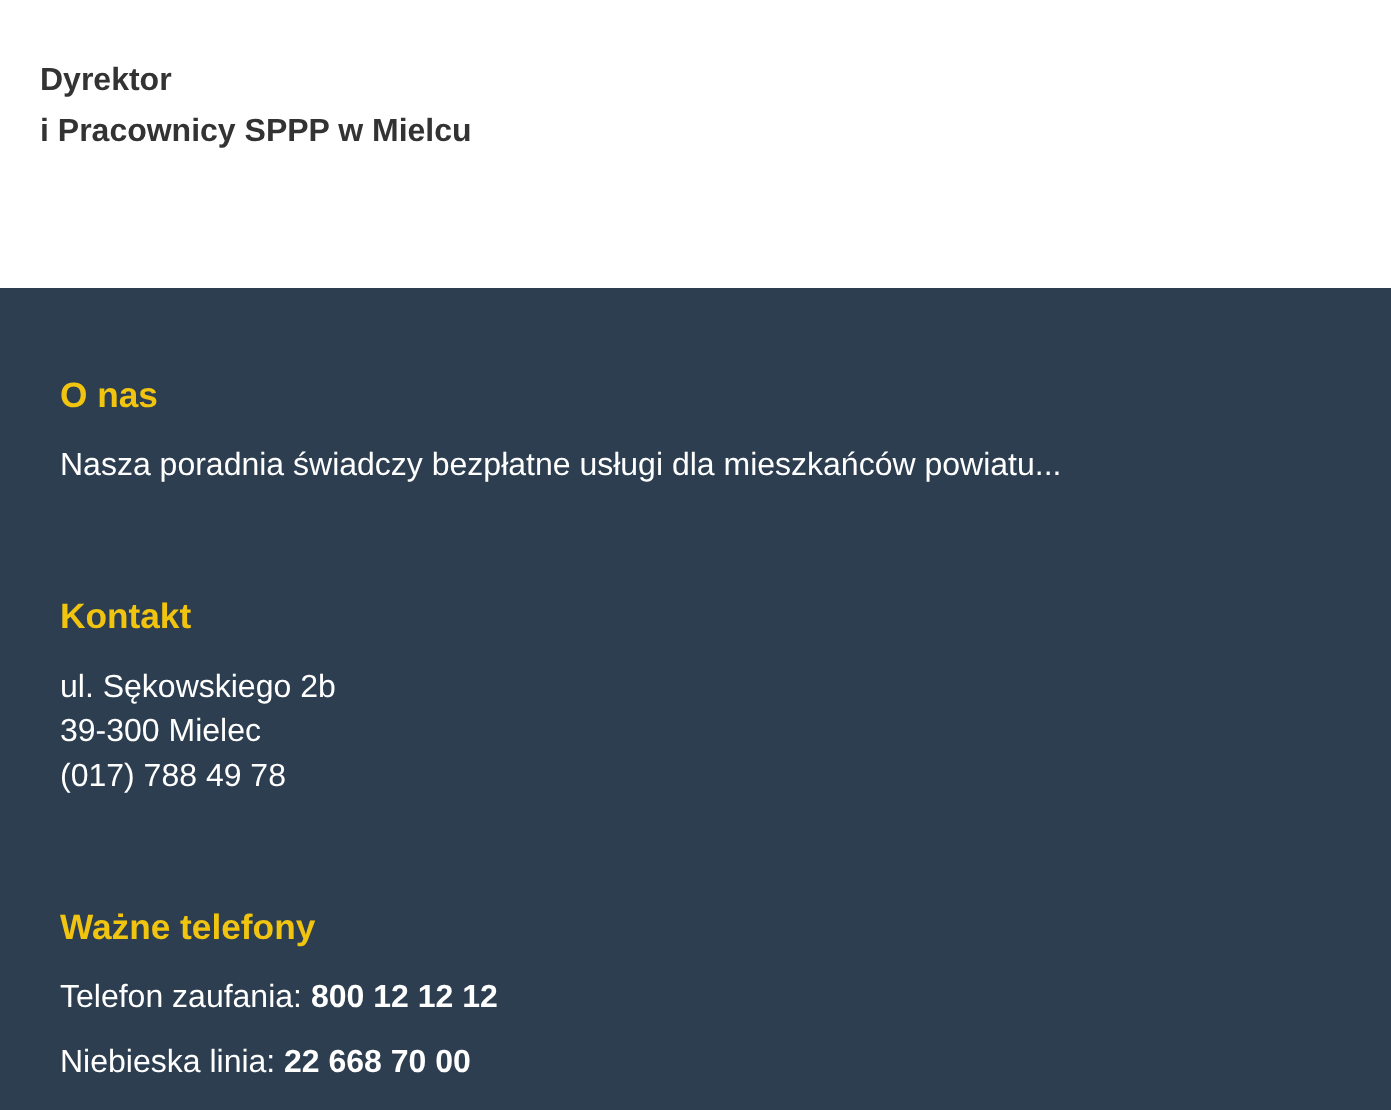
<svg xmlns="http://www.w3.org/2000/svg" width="1391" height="1110">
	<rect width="100%" height="100%" fill="#FFFFFF" />
	<g font-family="Liberation Sans" font-size="32" font-weight="700" fill="#333333">
		<text x="40" y="90">Dyrektor</text>
		<text x="40" y="141">i Pracownicy SPPP w Mielcu</text>
	</g>
	<rect x="0" y="288" width="1391" height="822" fill="#2C3E50" />
	<text x="60" y="407" font-family="Liberation Sans" font-size="35.25" font-weight="700" fill="#F1C40F">O nas</text>
	<text x="60" y="475" font-family="Liberation Sans" font-size="32" fill="#FFFFFF">Nasza poradnia świadczy bezpłatne usługi dla mieszkańców powiatu...</text>
	<text x="60" y="628" font-family="Liberation Sans" font-size="35.25" font-weight="700" fill="#F1C40F">Kontakt</text>
	<g font-family="Liberation Sans" font-size="32" fill="#FFFFFF">
		<text x="60" y="697">ul. Sękowskiego 2b</text>
		<text x="60" y="741">39-300 Mielec</text>
		<text x="60" y="786">(017) 788 49 78</text>
	</g>
	<text x="60" y="939" font-family="Liberation Sans" font-size="35.25" font-weight="700" fill="#F1C40F">Ważne telefony</text>
	<text x="60" y="1007" font-family="Liberation Sans" font-size="32" fill="#FFFFFF">Telefon zaufania:</text>
	<text x="311" y="1007" font-family="Liberation Sans" font-size="32" font-weight="700" fill="#FFFFFF">800 12 12 12</text>
	<text x="60" y="1072" font-family="Liberation Sans" font-size="32" fill="#FFFFFF">Niebieska linia:</text>
	<text x="284" y="1072" font-family="Liberation Sans" font-size="32" font-weight="700" fill="#FFFFFF">22 668 70 00</text>
</svg>
